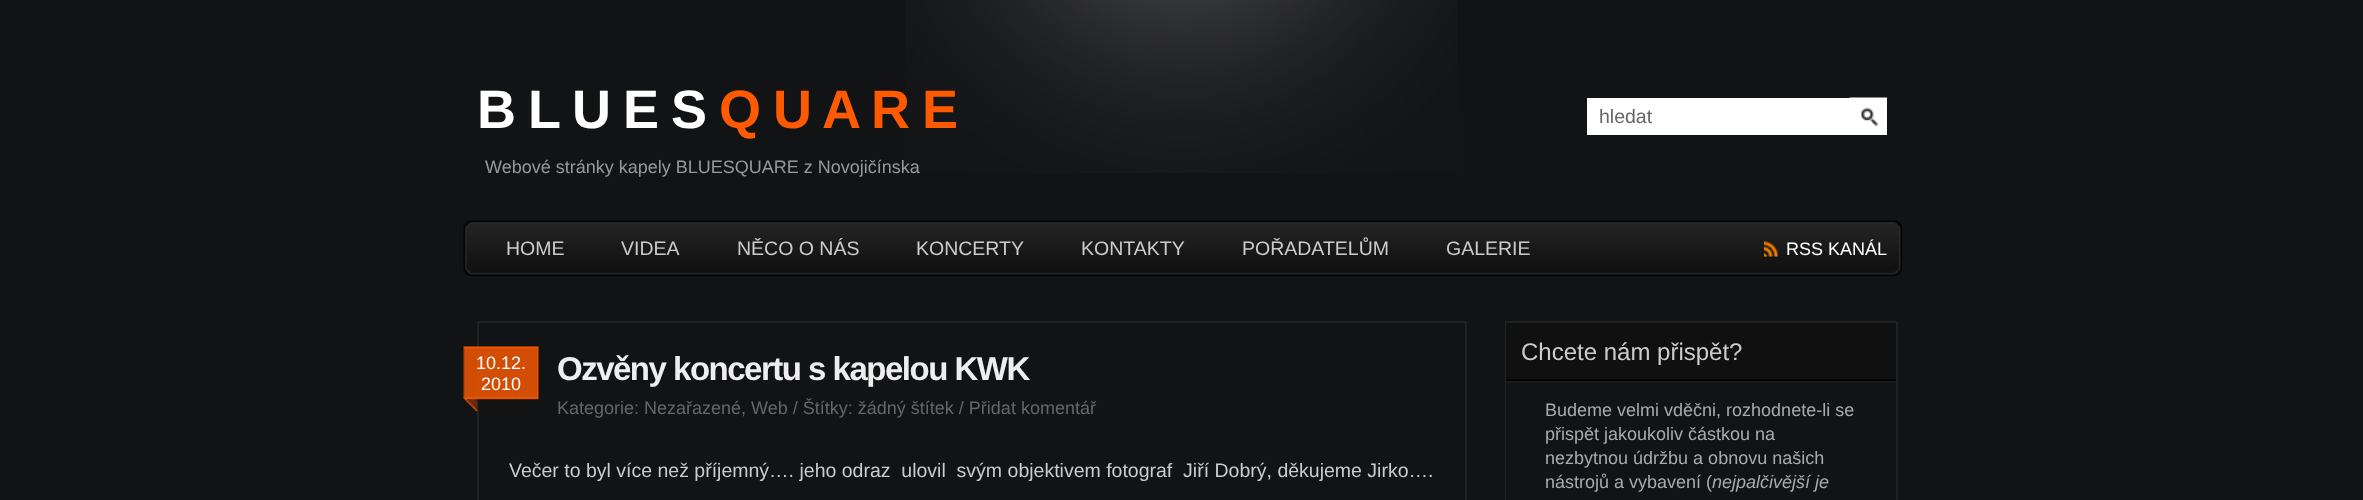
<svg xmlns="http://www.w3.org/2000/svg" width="2363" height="500">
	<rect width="100%" height="100%" fill="#121315" />
	<image x="905" y="0" width="552" height="173" href="assets/img1.png" />
	<text x="477" y="128" font-family="Liberation Sans" font-size="54" font-weight="700" letter-spacing="-1.5" fill="#FFFFFF">B L U E S</text>
	<text x="719" y="128" font-family="Liberation Sans" font-size="54" font-weight="700" letter-spacing="-1.5" fill="#FF5A00">Q U A R E</text>
	<text x="485" y="173" font-family="Liberation Sans" font-size="18" fill="#999999">Webové stránky kapely BLUESQUARE z Novojičínska</text>
	<rect x="1587" y="98" width="300" height="37" fill="#FFFFFF" />
	<text x="1599" y="123" font-family="Liberation Sans" font-size="19.5" fill="#666666">hledat</text>
	<image x="1849" y="97" width="38" height="30" href="assets/img2.png" />
	<image x="463" y="220" width="1439" height="56" href="assets/img3.png" />
	<g font-family="Liberation Sans" font-size="19.5" fill="#CCCCCC">
		<text x="506" y="255">HOME</text>
		<text x="621" y="255">VIDEA</text>
		<text x="737" y="255">NĚCO O NÁS</text>
		<text x="916" y="255">KONCERTY</text>
		<text x="1081" y="255">KONTAKTY</text>
		<text x="1242" y="255">POŘADATELŮM</text>
		<text x="1446" y="255">GALERIE</text>
	</g>
	<image x="1764" y="241" width="14" height="16" href="assets/img4.png" />
	<text x="1786" y="255" font-family="Liberation Sans" font-size="18" fill="#FFFFFF">RSS KANÁL</text>
	<rect x="478" y="322" width="988" height="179" fill="none" stroke="#1F2223" stroke-width="2" />
	<image x="463" y="346" width="76" height="65" href="assets/img5.png" />
	<g font-family="Liberation Sans" font-size="18" fill="#FFFFFF">
		<text x="476" y="369">10.12.</text>
		<text x="481" y="390">2010</text>
	</g>
	<text x="557" y="380" font-family="Liberation Sans" font-size="33" font-weight="700" letter-spacing="-1.5" fill="#EEEEEE">Ozvěny koncertu s kapelou KWK</text>
	<text x="557" y="414" font-family="Liberation Sans" font-size="18" fill="#666666">Kategorie: Nezařazené, Web / Štítky: žádný štítek / Přidat komentář</text>
	<text x="509" y="477" font-family="Liberation Sans" font-size="19.5" fill="#CCCCCC" xml:space="preserve">Večer to byl více než příjemný…. jeho odraz  ulovil  svým objektivem fotograf  Jiří Dobrý, děkujeme Jirko….</text>
	<rect x="1506" y="322" width="391" height="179" fill="none" stroke="#1F2223" stroke-width="2" />
	<rect x="1506" y="383" width="1" height="117" fill="#131313" />
	<rect x="1506" y="323" width="390" height="60" fill="#101010" />
	<image x="1506" y="379" width="390" height="4" href="assets/img6.png" />
	<text x="1521" y="360" font-family="Liberation Sans" font-size="24" fill="#CCCCCC">Chcete nám přispět?</text>
	<g font-family="Liberation Sans" font-size="18" fill="#AAAAAA">
		<text x="1545" y="416">Budeme velmi vděčni, rozhodnete-li se</text>
		<text x="1545" y="440">přispět jakoukoliv částkou na</text>
		<text x="1545" y="464">nezbytnou údržbu a obnovu našich</text>
		<text x="1545" y="488">nástrojů a vybavení (</text>
	</g>
	<text x="1712" y="488" font-family="Liberation Sans" font-size="18" font-style="italic" fill="#AAAAAA">nejpalčivější je</text>
</svg>
